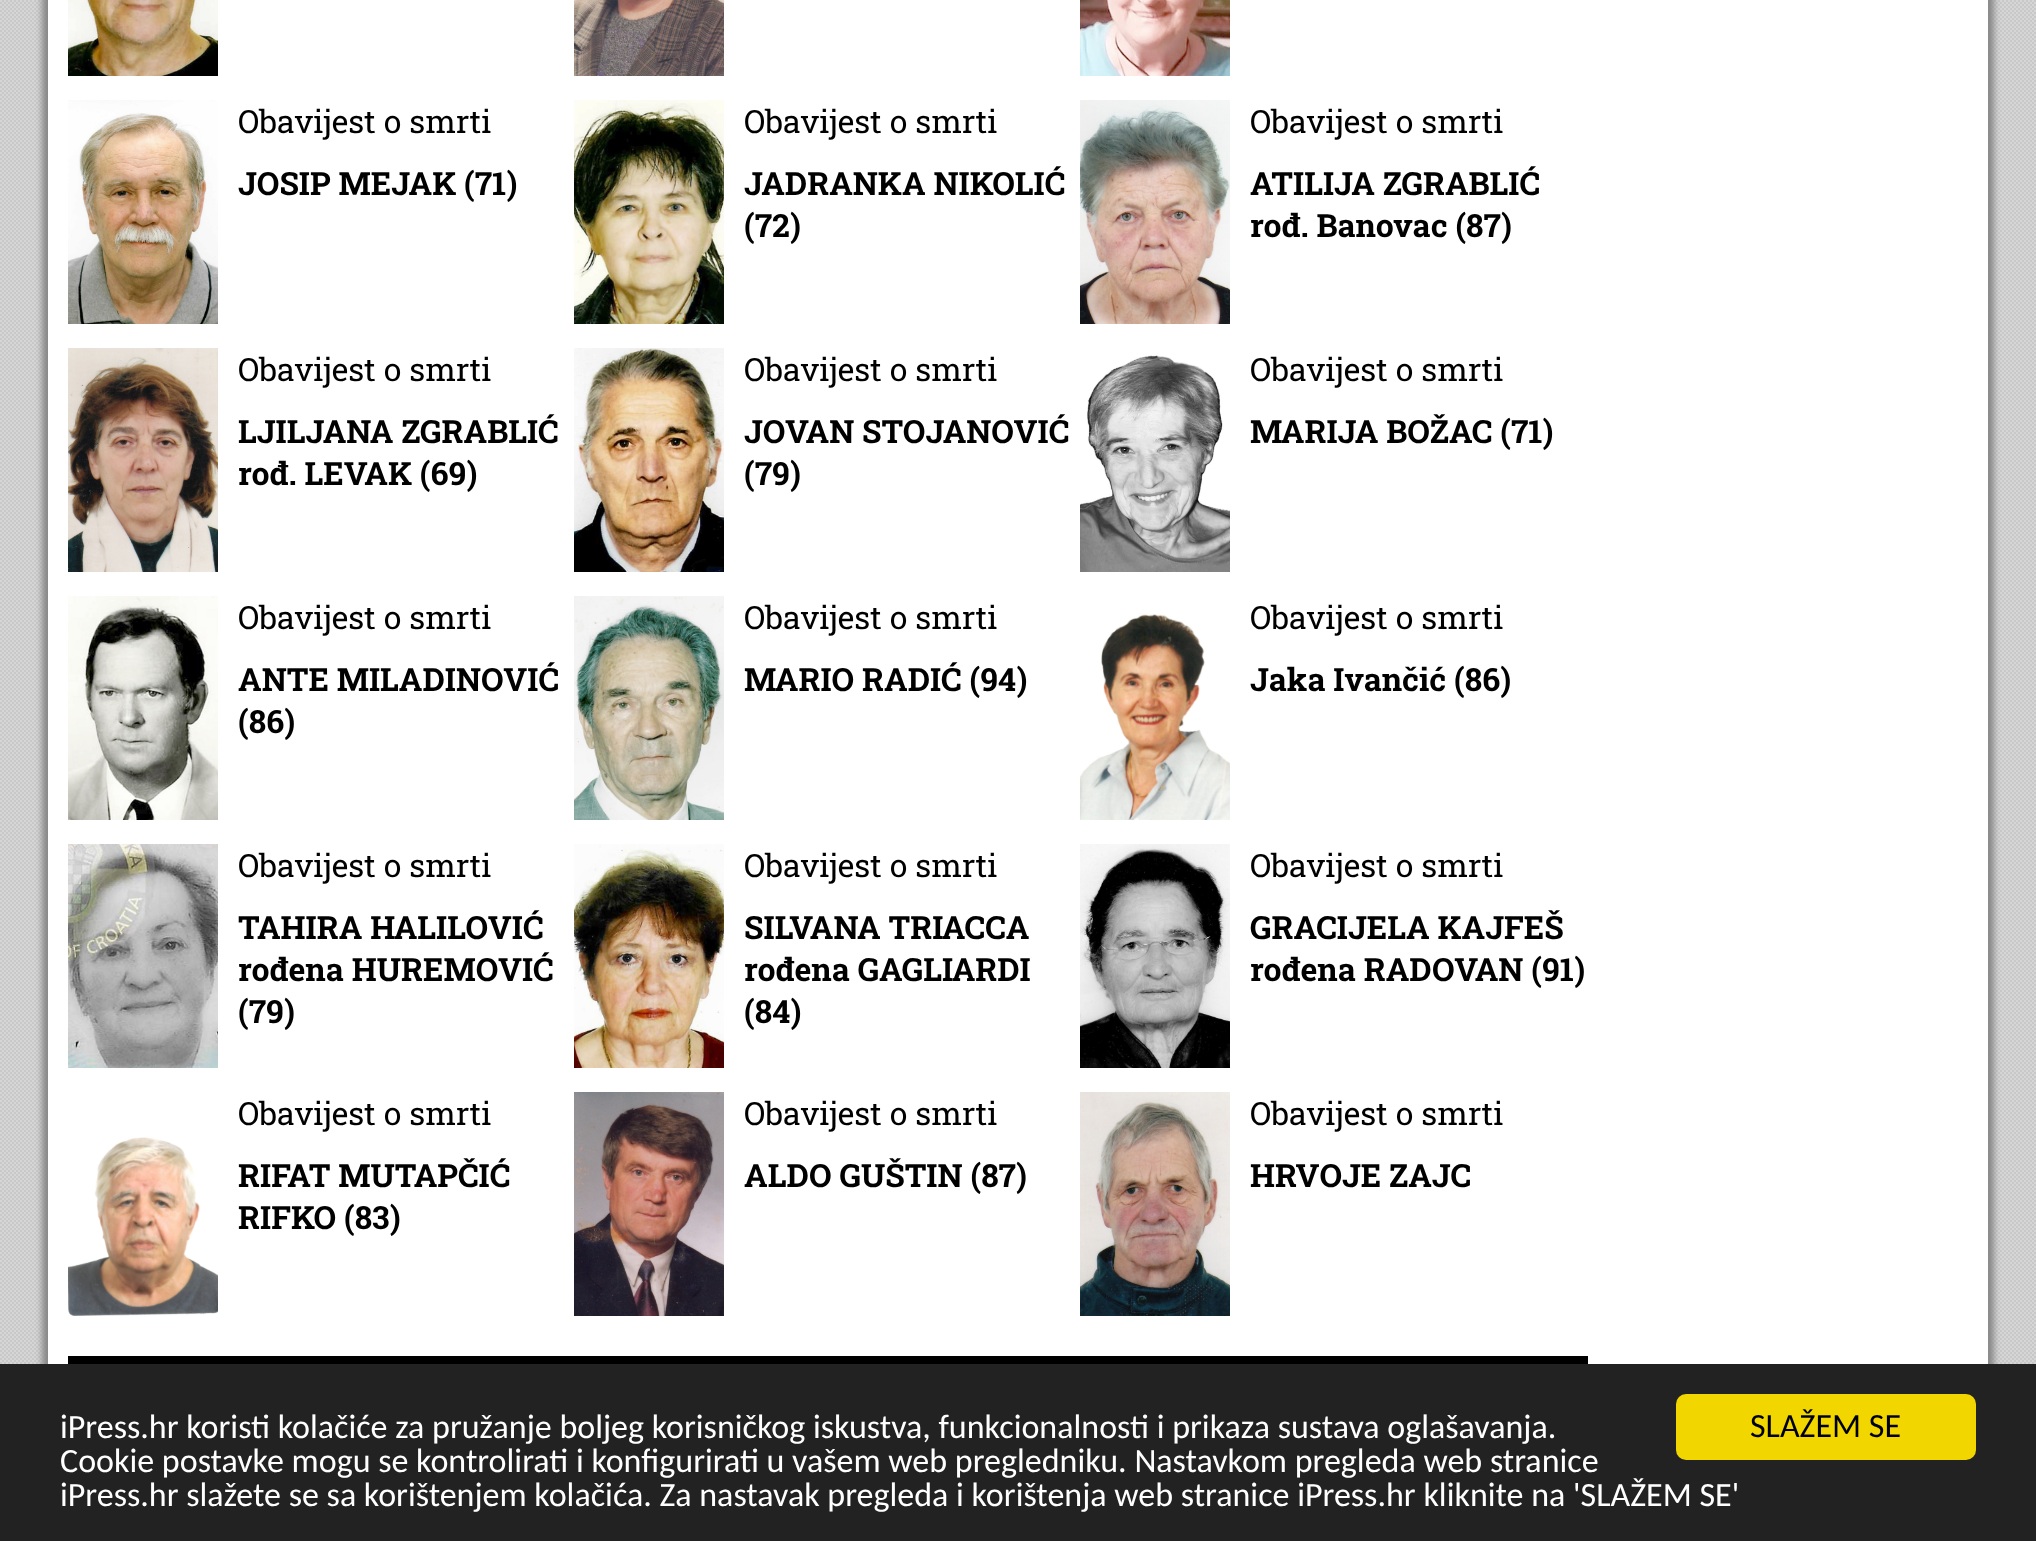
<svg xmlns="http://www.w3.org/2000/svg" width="2036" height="1541">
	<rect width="100%" height="100%" fill="#FFFFFF" />
	<image x="0" y="0" width="2036" height="1364" href="assets/img1.png" />
	<rect x="42" y="-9" width="1940" height="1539" fill="#888888" filter="blur(3px)" />
	<rect x="54" y="-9" width="1940" height="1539" fill="#888888" filter="blur(3px)" />
	<rect x="48" y="0" width="1940" height="1364" fill="#FFFFFF" />
	<image x="68" y="0" width="150" height="76" href="assets/img2.png" />
	<image x="574" y="0" width="150" height="76" href="assets/img3.png" />
	<image x="1080" y="0" width="150" height="76" href="assets/img4.png" />
	<image x="68" y="100" width="150" height="224" href="assets/img5.png" />
	<text x="238" y="133" font-family="Roboto Slab" font-size="32" fill="#000000">Obavijest o smrti</text>
	<text x="238" y="195" font-family="Roboto Slab" font-size="32" font-weight="700" fill="#000000">JOSIP MEJAK (71)</text>
	<image x="574" y="100" width="150" height="224" href="assets/img6.png" />
	<text x="744" y="133" font-family="Roboto Slab" font-size="32" fill="#000000">Obavijest o smrti</text>
	<g font-family="Roboto Slab" font-size="32" font-weight="700" fill="#000000">
		<text x="744" y="195">JADRANKA NIKOLIĆ</text>
		<text x="744" y="237">(72)</text>
	</g>
	<image x="1080" y="100" width="150" height="224" href="assets/img7.png" />
	<text x="1250" y="133" font-family="Roboto Slab" font-size="32" fill="#000000">Obavijest o smrti</text>
	<g font-family="Roboto Slab" font-size="32" font-weight="700" fill="#000000">
		<text x="1250" y="195">ATILIJA ZGRABLIĆ</text>
		<text x="1250" y="237">rođ. Banovac (87)</text>
	</g>
	<image x="68" y="348" width="150" height="224" href="assets/img8.png" />
	<text x="238" y="381" font-family="Roboto Slab" font-size="32" fill="#000000">Obavijest o smrti</text>
	<g font-family="Roboto Slab" font-size="32" font-weight="700" fill="#000000">
		<text x="238" y="443">LJILJANA ZGRABLIĆ</text>
		<text x="238" y="485">rođ. LEVAK (69)</text>
	</g>
	<image x="574" y="348" width="150" height="224" href="assets/img9.png" />
	<text x="744" y="381" font-family="Roboto Slab" font-size="32" fill="#000000">Obavijest o smrti</text>
	<g font-family="Roboto Slab" font-size="32" font-weight="700" fill="#000000">
		<text x="744" y="443">JOVAN STOJANOVIĆ</text>
		<text x="744" y="485">(79)</text>
	</g>
	<image x="1080" y="348" width="150" height="224" href="assets/img10.png" />
	<text x="1250" y="381" font-family="Roboto Slab" font-size="32" fill="#000000">Obavijest o smrti</text>
	<text x="1250" y="443" font-family="Roboto Slab" font-size="32" font-weight="700" fill="#000000">MARIJA BOŽAC (71)</text>
	<image x="68" y="596" width="150" height="224" href="assets/img11.png" />
	<text x="238" y="629" font-family="Roboto Slab" font-size="32" fill="#000000">Obavijest o smrti</text>
	<g font-family="Roboto Slab" font-size="32" font-weight="700" fill="#000000">
		<text x="238" y="691">ANTE MILADINOVIĆ</text>
		<text x="238" y="733">(86)</text>
	</g>
	<image x="574" y="596" width="150" height="224" href="assets/img12.png" />
	<text x="744" y="629" font-family="Roboto Slab" font-size="32" fill="#000000">Obavijest o smrti</text>
	<text x="744" y="691" font-family="Roboto Slab" font-size="32" font-weight="700" fill="#000000">MARIO RADIĆ (94)</text>
	<image x="1080" y="596" width="150" height="224" href="assets/img13.png" />
	<text x="1250" y="629" font-family="Roboto Slab" font-size="32" fill="#000000">Obavijest o smrti</text>
	<text x="1250" y="691" font-family="Roboto Slab" font-size="32" font-weight="700" fill="#000000">Jaka Ivančić (86)</text>
	<image x="68" y="844" width="150" height="224" href="assets/img14.png" />
	<text x="238" y="877" font-family="Roboto Slab" font-size="32" fill="#000000">Obavijest o smrti</text>
	<g font-family="Roboto Slab" font-size="32" font-weight="700" fill="#000000">
		<text x="238" y="939">TAHIRA HALILOVIĆ</text>
		<text x="238" y="981">rođena HUREMOVIĆ</text>
		<text x="238" y="1023">(79)</text>
	</g>
	<image x="574" y="844" width="150" height="224" href="assets/img15.png" />
	<text x="744" y="877" font-family="Roboto Slab" font-size="32" fill="#000000">Obavijest o smrti</text>
	<g font-family="Roboto Slab" font-size="32" font-weight="700" fill="#000000">
		<text x="744" y="939">SILVANA TRIACCA</text>
		<text x="744" y="981">rođena GAGLIARDI</text>
		<text x="744" y="1023">(84)</text>
	</g>
	<image x="1080" y="844" width="150" height="224" href="assets/img16.png" />
	<text x="1250" y="877" font-family="Roboto Slab" font-size="32" fill="#000000">Obavijest o smrti</text>
	<g font-family="Roboto Slab" font-size="32" font-weight="700" fill="#000000">
		<text x="1250" y="939">GRACIJELA KAJFEŠ</text>
		<text x="1250" y="981">rođena RADOVAN (91)</text>
	</g>
	<image x="68" y="1092" width="150" height="224" href="assets/img17.png" />
	<text x="238" y="1125" font-family="Roboto Slab" font-size="32" fill="#000000">Obavijest o smrti</text>
	<g font-family="Roboto Slab" font-size="32" font-weight="700" fill="#000000">
		<text x="238" y="1187">RIFAT MUTAPČIĆ</text>
		<text x="238" y="1229">RIFKO (83)</text>
	</g>
	<image x="574" y="1092" width="150" height="224" href="assets/img18.png" />
	<text x="744" y="1125" font-family="Roboto Slab" font-size="32" fill="#000000">Obavijest o smrti</text>
	<text x="744" y="1187" font-family="Roboto Slab" font-size="32" font-weight="700" fill="#000000">ALDO GUŠTIN (87)</text>
	<image x="1080" y="1092" width="150" height="224" href="assets/img19.png" />
	<text x="1250" y="1125" font-family="Roboto Slab" font-size="32" fill="#000000">Obavijest o smrti</text>
	<text x="1250" y="1187" font-family="Roboto Slab" font-size="32" font-weight="700" fill="#000000">HRVOJE ZAJC</text>
	<rect x="68" y="1356" width="1520" height="8" fill="#000000" />
	<rect x="0" y="1364" width="2036" height="177" fill="#222222" />
	<g font-family="Carlito" font-size="34" fill="#FFFFFF">
		<text x="60" y="1438">iPress.hr koristi kolačiće za pružanje boljeg korisničkog iskustva, funkcionalnosti i prikaza sustava oglašavanja.</text>
		<text x="60" y="1472">Cookie postavke mogu se kontrolirati i konfigurirati u vašem web pregledniku. Nastavkom pregleda web stranice</text>
		<text x="60" y="1506">iPress.hr slažete se sa korištenjem kolačića. Za nastavak pregleda i korištenja web stranice iPress.hr kliknite na 'SLAŽEM SE'</text>
	</g>
	<rect x="1676" y="1394" width="300" height="66" rx="10" fill="#F1D600" />
	<text x="1750" y="1437" font-family="Carlito" font-size="34" fill="#000000">SLAŽEM SE</text>
</svg>
